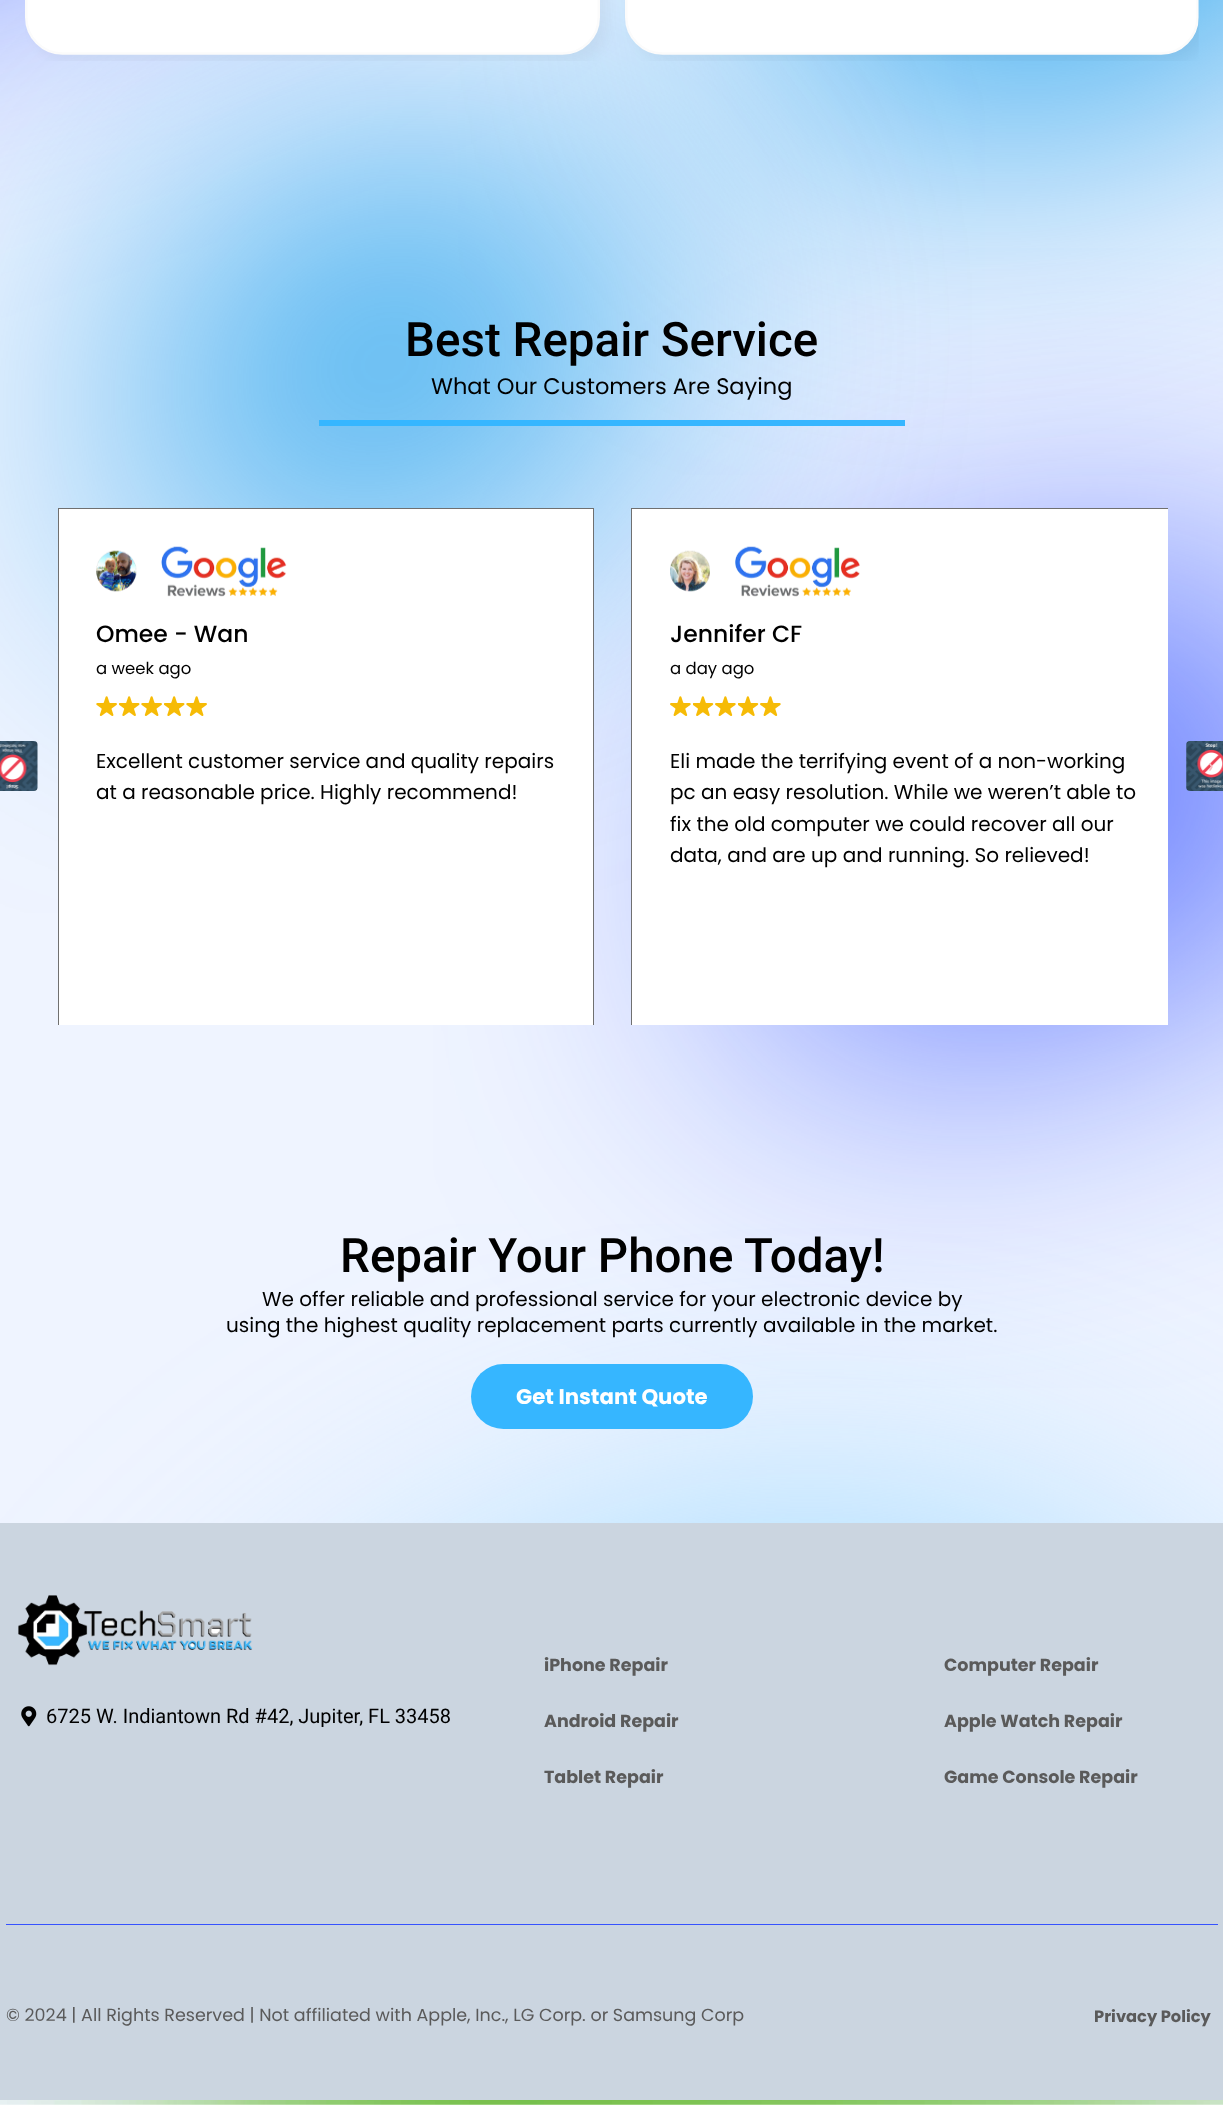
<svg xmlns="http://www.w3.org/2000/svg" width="1223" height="2105">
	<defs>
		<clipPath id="clip1"><rect x="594" y="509" width="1" height="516" /></clipPath>
		<clipPath id="clip2"><rect x="56" y="508" width="1112" height="517" /></clipPath>
		<clipPath id="clip3"><rect x="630" y="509" width="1" height="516" /></clipPath>
	</defs>
	<rect width="100%" height="100%" fill="#FFFFFF" />
	<image x="0" y="2100" width="1223" height="5" href="assets/img1.png" />
	<image x="0" y="0" width="1223" height="1523" href="assets/img2.png" />
	<image x="25" y="0" width="1174" height="61" href="assets/img3.png" />
	<text x="405" y="356" font-family="Roboto" font-size="47.5" font-weight="500" fill="#000000">Best Repair Service</text>
	<text x="431" y="394" font-family="Poppins" font-size="22.5" fill="#000000">What Our Customers Are Saying</text>
	<rect x="319" y="420" width="586" height="6" fill="#36B6FF" />
	<g clip-path="url(#clip1)">
		<rect x="58" y="508" width="536" height="526" fill="#000000" fill-opacity="0.2" filter="blur(0.5px)" />
	</g>
	<rect x="59" y="509" width="534" height="516" fill="#FFFFFF" />
	<g clip-path="url(#clip2)">
		<rect x="58.5" y="508.5" width="535" height="525" fill="none" stroke="#707070" />
	</g>
	<image x="96" y="550" width="41" height="42" href="assets/img4.png" />
	<image x="161" y="546" width="126" height="51" href="assets/img5.png" />
	<text x="96" y="642" font-family="Poppins" font-size="23.5" font-weight="500" fill="#000000">Omee - Wan</text>
	<text x="96" y="674" font-family="Poppins" font-size="16.5" fill="#000000">a week ago</text>
	<image x="96" y="696" width="21" height="20" href="assets/img6.png" />
	<image x="119" y="696" width="21" height="20" href="assets/img7.png" />
	<image x="141" y="696" width="21" height="20" href="assets/img6.png" />
	<image x="164" y="696" width="21" height="20" href="assets/img7.png" />
	<image x="186" y="696" width="21" height="20" href="assets/img6.png" />
	<g font-family="Poppins" font-size="20" fill="#000000">
		<text x="96" y="768">Excellent customer service and quality repairs</text>
		<text x="96" y="799">at a reasonable price. Highly recommend!</text>
	</g>
	<g clip-path="url(#clip3)">
		<rect x="631" y="508" width="538" height="526" fill="#000000" fill-opacity="0.2" filter="blur(0.5px)" />
	</g>
	<rect x="632" y="509" width="536" height="516" fill="#FFFFFF" />
	<g clip-path="url(#clip2)">
		<rect x="631.5" y="508.5" width="537" height="525" fill="none" stroke="#707070" />
	</g>
	<image x="670" y="550" width="40" height="42" href="assets/img8.png" />
	<image x="735" y="546" width="125" height="51" href="assets/img9.png" />
	<text x="670" y="642" font-family="Poppins" font-size="23.5" font-weight="500" fill="#000000">Jennifer CF</text>
	<text x="670" y="674" font-family="Poppins" font-size="16.5" fill="#000000">a day ago</text>
	<image x="670" y="696" width="21" height="20" href="assets/img10.png" />
	<image x="693" y="696" width="21" height="20" href="assets/img11.png" />
	<image x="715" y="696" width="21" height="20" href="assets/img10.png" />
	<image x="738" y="696" width="21" height="20" href="assets/img11.png" />
	<image x="760" y="696" width="21" height="20" href="assets/img10.png" />
	<g font-family="Poppins" font-size="20" fill="#000000">
		<text x="670" y="768">Eli made the terrifying event of a non-working</text>
		<text x="670" y="799">pc an easy resolution. While we weren’t able to</text>
		<text x="670" y="831">fix the old computer we could recover all our</text>
		<text x="670" y="862">data, and are up and running. So relieved!</text>
	</g>
	<image x="0" y="741" width="38" height="50" href="assets/img12.png" />
	<image x="1186" y="741" width="37" height="50" href="assets/img13.png" />
	<text x="1208" y="773" font-family="Poppins" font-size="20" fill="#F9BEC4">›</text>
	<text x="340" y="1272" font-family="Roboto" font-size="47.5" font-weight="500" fill="#000000">Repair Your Phone Today!</text>
	<g font-family="Poppins" font-size="20" fill="#000000">
		<text x="262" y="1306">We offer reliable and professional service for your electronic device by</text>
		<text x="226" y="1332">using the highest quality replacement parts currently available in the market.</text>
	</g>
	<rect x="471" y="1364" width="282" height="65" rx="32.5" fill="#36B6FF" />
	<text x="516" y="1404" font-family="Poppins" font-size="21.25" font-weight="700" fill="#FFFFFF">Get Instant Quote</text>
	<rect x="0" y="1523" width="1223" height="577" fill="#CBD5E0" />
	<image x="18" y="1595" width="235" height="71" href="assets/img14.png" />
	<image x="21" y="1706" width="16" height="21" href="assets/img15.png" />
	<text x="46" y="1723" font-family="Roboto" font-size="20" fill="#000000">6725 W. Indiantown Rd #42, Jupiter, FL 33458</text>
	<g font-family="Poppins" font-size="17.5" font-weight="700" fill="#5A5A5A">
		<text x="544" y="1671">iPhone Repair</text>
		<text x="544" y="1727">Android Repair</text>
		<text x="544" y="1783">Tablet Repair</text>
		<text x="944" y="1671">Computer Repair</text>
		<text x="944" y="1727">Apple Watch Repair</text>
		<text x="944" y="1783">Game Console Repair</text>
	</g>
	<rect x="6" y="1924" width="1212" height="1" fill="#3652FF" />
	<text x="6" y="2021" font-family="Poppins" font-size="17.5" fill="#5A5A5A">© 2024 | All Rights Reserved | Not affiliated with Apple, Inc., LG Corp. or Samsung Corp</text>
	<text x="1094" y="2022" font-family="Poppins" font-size="16.25" font-weight="700" fill="#5A5A5A">Privacy Policy</text>
</svg>
